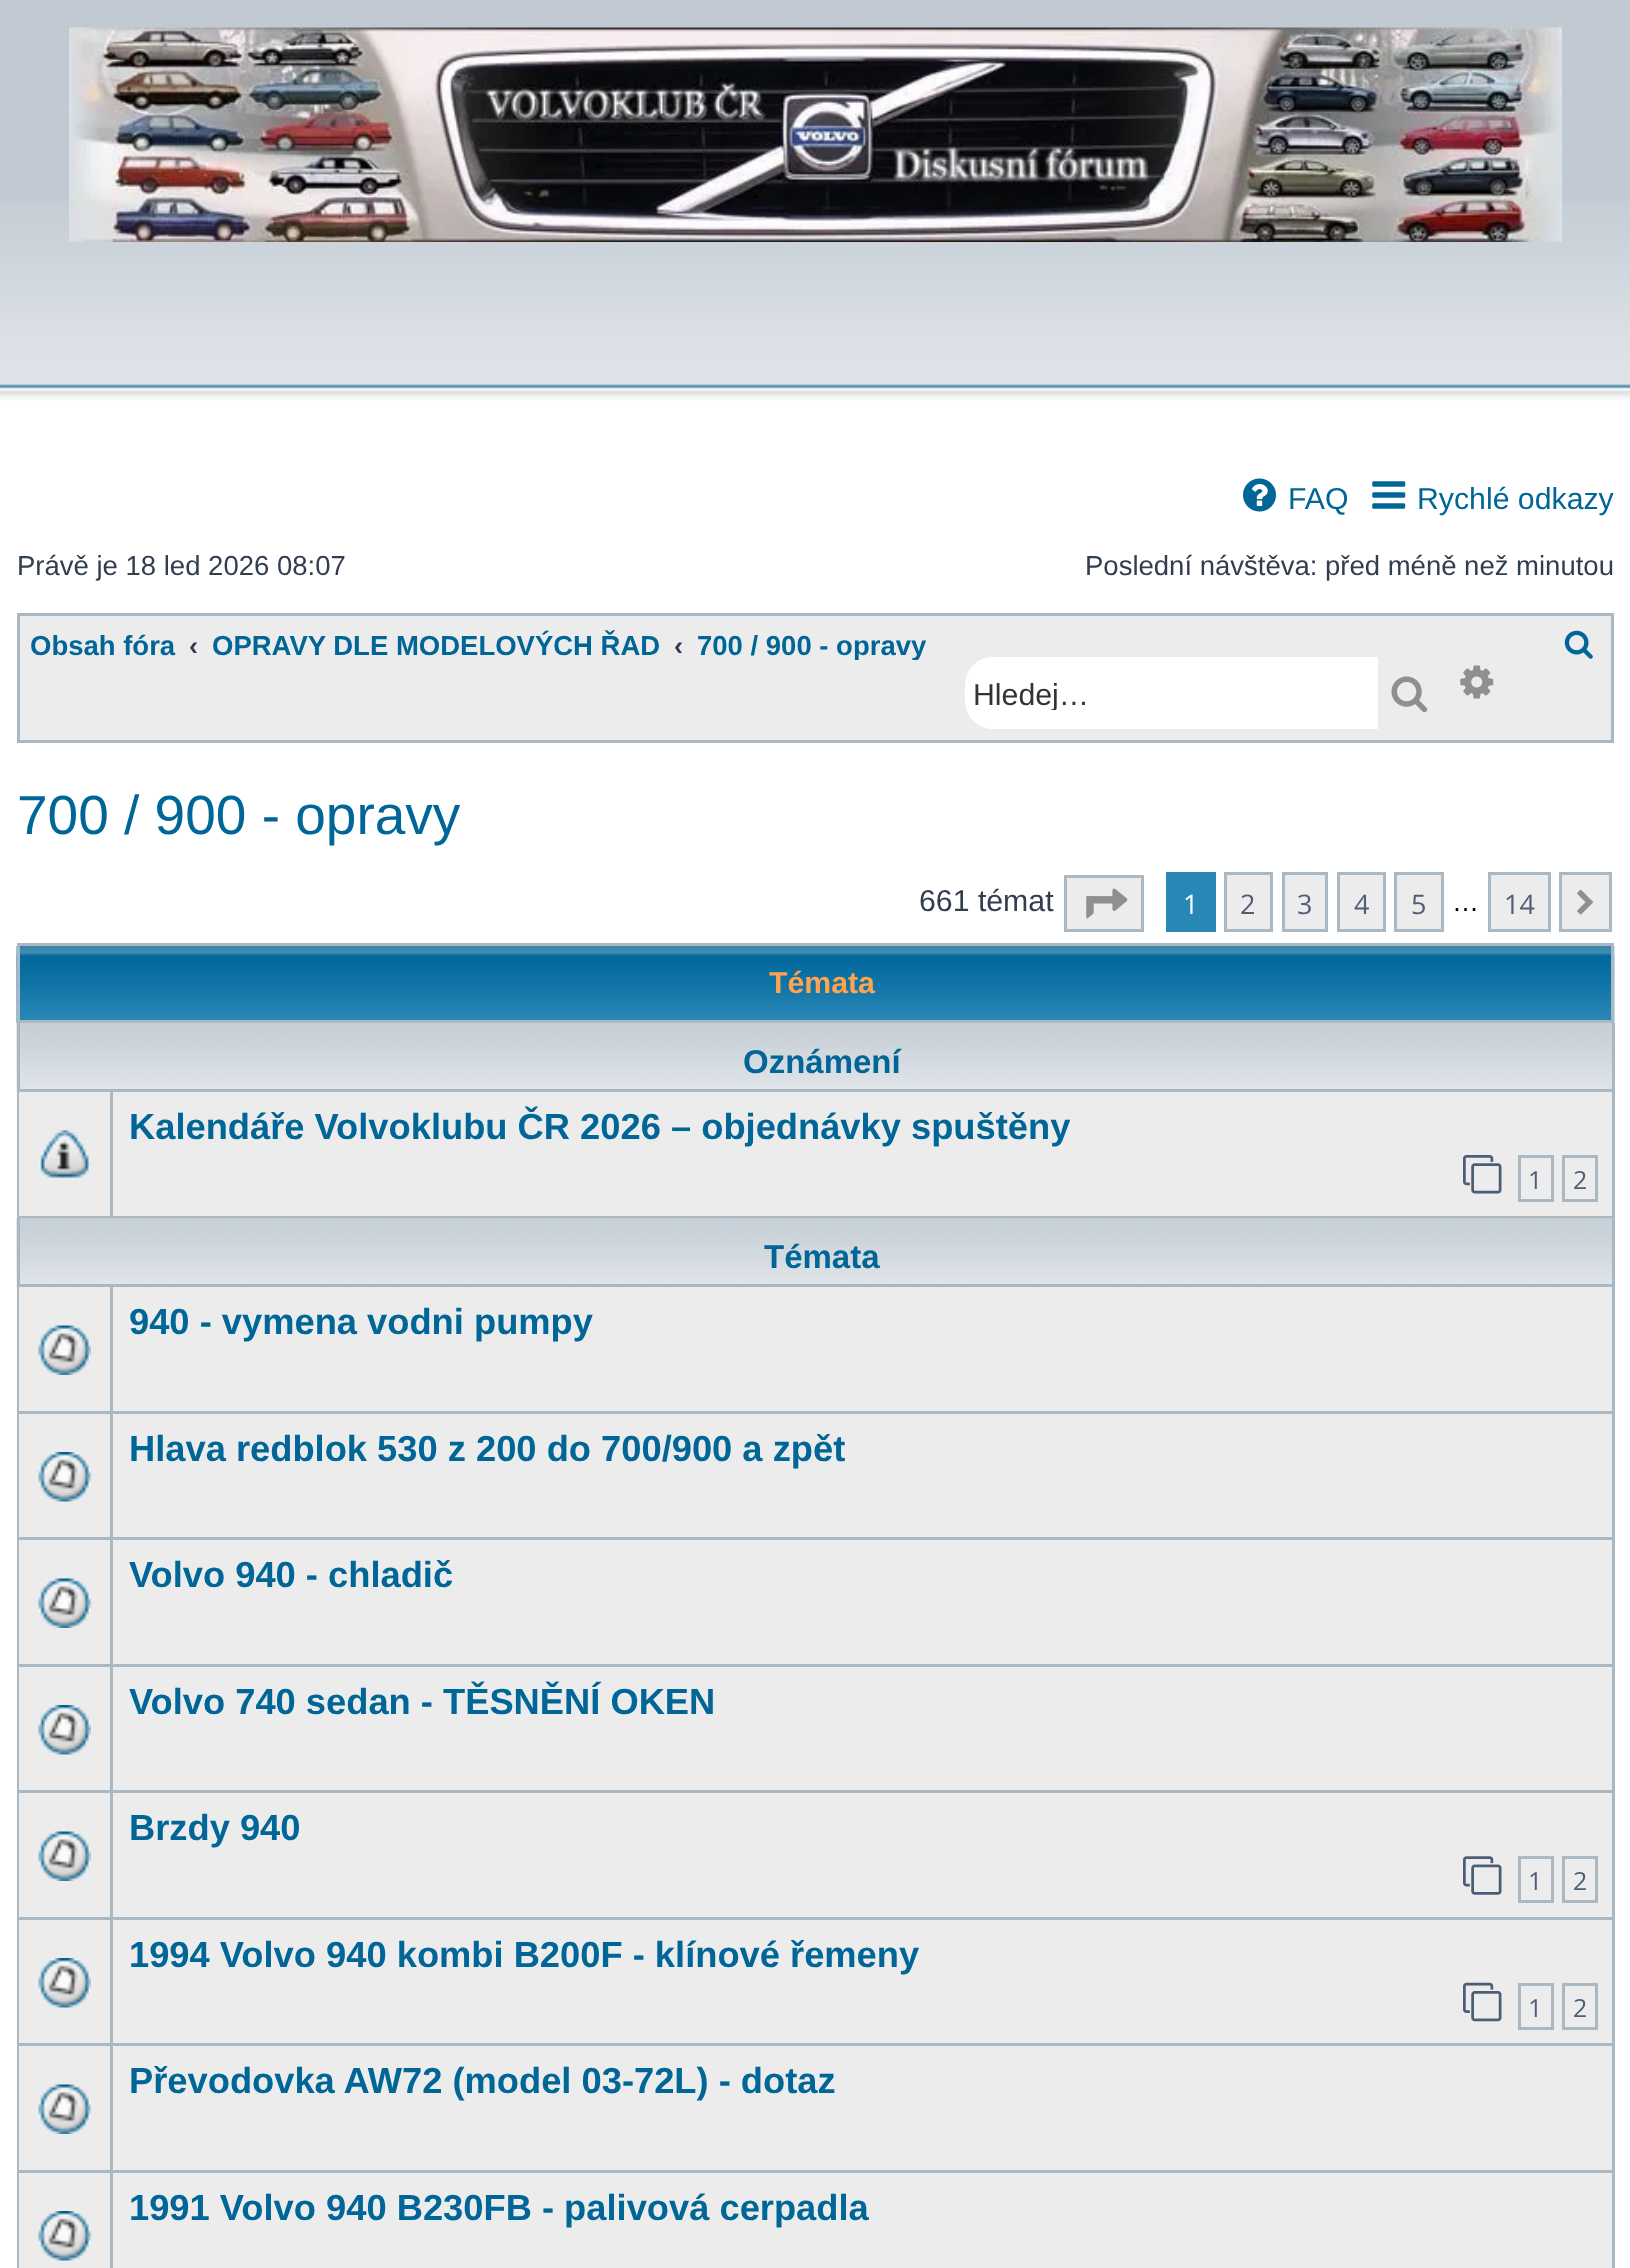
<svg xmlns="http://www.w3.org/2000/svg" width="1630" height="2268">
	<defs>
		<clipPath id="clip1"><rect x="696" y="630" width="231" height="30" /></clipPath>
		<clipPath id="clip2"><rect x="974" y="677" width="363" height="33" /></clipPath>
	</defs>
	<rect width="100%" height="100%" fill="#FFFFFF" />
	<rect x="0" y="0" width="1630" height="201" fill="#C1CAD2" />
	<image x="0" y="201" width="1630" height="214" href="assets/img1.png" />
	<image x="69" y="27" width="1493" height="215" href="assets/img2.png" />
	<image x="1243" y="478" width="33" height="34" href="assets/img3.png" />
	<text x="1288" y="509" font-family="Liberation Sans" font-size="30.25" fill="#006597">FAQ</text>
	<image x="1372" y="481" width="34" height="28" href="assets/img4.png" />
	<text x="1417" y="509" font-family="Liberation Sans" font-size="30.25" fill="#006597">Rychlé odkazy</text>
	<g font-family="Liberation Sans" font-size="27.5" fill="#323D4F">
		<text x="17" y="575">Právě je 18 led 2026 08:07</text>
		<text x="1085" y="575">Poslední návštěva: před méně než minutou</text>
	</g>
	<rect x="18.5" y="614.5" width="1594" height="127" fill="#ECECEC" stroke="#A9B8C2" stroke-width="3" />
	<text x="30" y="655" font-family="Liberation Sans" font-size="27.5" font-weight="700" fill="#006597">Obsah fóra</text>
	<text x="189" y="655" font-family="Liberation Sans" font-size="27.5" font-weight="700" fill="#323D4F">‹</text>
	<text x="212" y="655" font-family="Liberation Sans" font-size="27.5" font-weight="700" fill="#006597">OPRAVY DLE MODELOVÝCH ŘAD</text>
	<text x="674" y="655" font-family="Liberation Sans" font-size="27.5" font-weight="700" fill="#323D4F">‹</text>
	<g clip-path="url(#clip1)">
		<text x="697" y="655" font-family="Liberation Sans" font-size="27.5" font-weight="700" fill="#006597">700 / 900 - opravy</text>
	</g>
	<image x="1564" y="630" width="29" height="29" href="assets/img5.png" />
	<path d="M993 657H1378V729H993C977.5 729 965 716.5 965 701V685C965 669.5 977.5 657 993 657Z" fill="#FFFFFF" />
	<g clip-path="url(#clip2)">
		<text x="973" y="705" font-family="Liberation Sans" font-size="30.25" fill="#333333">Hledej…</text>
	</g>
	<image x="1391" y="676" width="37" height="37" href="assets/img6.png" />
	<image x="1460" y="665" width="34" height="34" href="assets/img7.png" />
	<text x="17" y="834" font-family="Liberation Sans" font-size="55" fill="#006597">700 / 900 - opravy</text>
	<text x="919" y="911" font-family="Liberation Sans" font-size="30.25" fill="#323D4F">661 témat</text>
	<rect x="1065.5" y="876.5" width="77" height="54" fill="#ECECEC" stroke="#A9B8C2" stroke-width="3" />
	<image x="1086" y="888" width="42" height="31" href="assets/img8.png" />
	<rect x="1166" y="872" width="50" height="60" fill="#2887B6" />
	<text x="1183" y="914" font-family="Open Sans" font-size="27" fill="#FFFFFF">1</text>
	<rect x="1225.5" y="873.5" width="46" height="57" fill="#ECECEC" stroke="#A9B8C2" stroke-width="3" />
	<text x="1240" y="914" font-family="Open Sans" font-size="27" fill="#515D77">2</text>
	<rect x="1283.5" y="873.5" width="43" height="57" fill="#ECECEC" stroke="#A9B8C2" stroke-width="3" />
	<text x="1297" y="914" font-family="Open Sans" font-size="27" fill="#515D77">3</text>
	<rect x="1338.5" y="873.5" width="46" height="57" fill="#ECECEC" stroke="#A9B8C2" stroke-width="3" />
	<text x="1354" y="914" font-family="Open Sans" font-size="27" fill="#515D77">4</text>
	<rect x="1395.5" y="873.5" width="47" height="57" fill="#ECECEC" stroke="#A9B8C2" stroke-width="3" />
	<text x="1411" y="914" font-family="Open Sans" font-size="27" fill="#515D77">5</text>
	<text x="1452" y="911" font-family="Liberation Sans" font-size="27" fill="#000000">…</text>
	<rect x="1489.5" y="873.5" width="60" height="57" fill="#ECECEC" stroke="#A9B8C2" stroke-width="3" />
	<text x="1504" y="914" font-family="Open Sans" font-size="27" fill="#515D77">14</text>
	<rect x="1560.5" y="873.5" width="50" height="57" fill="#ECECEC" stroke="#A9B8C2" stroke-width="3" />
	<image x="1577" y="889" width="16" height="26" href="assets/img9.png" />
	<image x="16" y="946" width="1599" height="77" href="assets/img10.png" />
	<rect x="18.5" y="944.5" width="1594" height="77" fill="none" stroke="#A9B8C2" stroke-width="3" />
	<text x="769" y="993" font-family="Liberation Sans" font-size="30.25" font-weight="700" fill="#FFA34F">Témata</text>
	<image x="16" y="1023" width="1596" height="69" href="assets/img11.png" />
	<rect x="1612" y="1023" width="3" height="195" fill="#A9B8C2" />
	<rect x="17" y="1216" width="1597" height="3" fill="#A9B8C2" />
	<rect x="17" y="1023" width="3" height="195" fill="#A9B8C2" />
	<text x="743" y="1073" font-family="Liberation Sans" font-size="33" font-weight="700" fill="#006597">Oznámení</text>
	<rect x="19" y="1092" width="1593" height="124" fill="#ECECEC" />
	<rect x="19" y="1089" width="1593" height="3" fill="#A9B8C2" />
	<image x="38" y="1130" width="53" height="48" href="assets/img12.png" />
	<rect x="110" y="1092" width="3" height="124" fill="#A9B8C2" />
	<text x="129" y="1139" font-family="Liberation Sans" font-size="36.3" font-weight="700" fill="#006597">Kalendáře Volvoklubu ČR 2026 – objednávky spuštěny</text>
	<image x="1463" y="1155" width="39" height="39" href="assets/img13.png" />
	<rect x="1519.5" y="1156.5" width="33" height="44" fill="none" stroke="#A9B8C2" stroke-width="3" />
	<text x="1528" y="1189" font-family="Open Sans" font-size="25" fill="#515D77">1</text>
	<rect x="1563.5" y="1156.5" width="33" height="44" fill="none" stroke="#A9B8C2" stroke-width="3" />
	<text x="1573" y="1189" font-family="Open Sans" font-size="25" fill="#515D77">2</text>
	<image x="16" y="1218" width="1596" height="69" href="assets/img14.png" />
	<rect x="1612" y="1218" width="3" height="1050" fill="#A9B8C2" />
	<rect x="17" y="1218" width="3" height="1050" fill="#A9B8C2" />
	<text x="764" y="1268" font-family="Liberation Sans" font-size="33" font-weight="700" fill="#006597">Témata</text>
	<rect x="19" y="1287" width="1593" height="981" fill="#ECECEC" />
	<rect x="19" y="1284" width="1593" height="3" fill="#A9B8C2" />
	<image x="38" y="1325" width="53" height="50" href="assets/img15.png" />
	<rect x="110" y="1287" width="3" height="124" fill="#A9B8C2" />
	<text x="129" y="1334" font-family="Liberation Sans" font-size="36.3" font-weight="700" fill="#006597">940 - vymena vodni pumpy</text>
	<rect x="19" y="1411" width="1593" height="3" fill="#A9B8C2" />
	<image x="38" y="1452" width="53" height="50" href="assets/img16.png" />
	<rect x="110" y="1414" width="3" height="123" fill="#A9B8C2" />
	<text x="129" y="1461" font-family="Liberation Sans" font-size="36.3" font-weight="700" fill="#006597">Hlava redblok 530 z 200 do 700/900 a zpět</text>
	<rect x="19" y="1537" width="1593" height="3" fill="#A9B8C2" />
	<image x="38" y="1578" width="53" height="50" href="assets/img15.png" />
	<rect x="110" y="1540" width="3" height="124" fill="#A9B8C2" />
	<text x="129" y="1587" font-family="Liberation Sans" font-size="36.3" font-weight="700" fill="#006597">Volvo 940 - chladič</text>
	<rect x="19" y="1664" width="1593" height="3" fill="#A9B8C2" />
	<image x="38" y="1705" width="53" height="50" href="assets/img16.png" />
	<rect x="110" y="1667" width="3" height="123" fill="#A9B8C2" />
	<text x="129" y="1714" font-family="Liberation Sans" font-size="36.3" font-weight="700" fill="#006597">Volvo 740 sedan - TĚSNĚNÍ OKEN</text>
	<rect x="19" y="1790" width="1593" height="3" fill="#A9B8C2" />
	<image x="38" y="1831" width="53" height="50" href="assets/img17.png" />
	<rect x="110" y="1793" width="3" height="124" fill="#A9B8C2" />
	<text x="129" y="1840" font-family="Liberation Sans" font-size="36.3" font-weight="700" fill="#006597">Brzdy 940</text>
	<image x="1463" y="1856" width="39" height="39" href="assets/img18.png" />
	<rect x="1519.5" y="1857.5" width="33" height="44" fill="none" stroke="#A9B8C2" stroke-width="3" />
	<text x="1528" y="1890" font-family="Open Sans" font-size="25" fill="#515D77">1</text>
	<rect x="1563.5" y="1857.5" width="33" height="44" fill="none" stroke="#A9B8C2" stroke-width="3" />
	<text x="1573" y="1890" font-family="Open Sans" font-size="25" fill="#515D77">2</text>
	<rect x="19" y="1917" width="1593" height="3" fill="#A9B8C2" />
	<image x="38" y="1958" width="53" height="50" href="assets/img19.png" />
	<rect x="110" y="1920" width="3" height="123" fill="#A9B8C2" />
	<text x="129" y="1967" font-family="Liberation Sans" font-size="36.3" font-weight="700" fill="#006597">1994 Volvo 940 kombi B200F - klínové řemeny</text>
	<image x="1463" y="1982" width="39" height="40" href="assets/img20.png" />
	<rect x="1519.5" y="1984.5" width="33" height="44" fill="none" stroke="#A9B8C2" stroke-width="3" />
	<text x="1528" y="2017" font-family="Open Sans" font-size="25" fill="#515D77">1</text>
	<rect x="1563.5" y="1984.5" width="33" height="44" fill="none" stroke="#A9B8C2" stroke-width="3" />
	<text x="1573" y="2017" font-family="Open Sans" font-size="25" fill="#515D77">2</text>
	<rect x="19" y="2043" width="1593" height="3" fill="#A9B8C2" />
	<image x="38" y="2084" width="53" height="50" href="assets/img15.png" />
	<rect x="110" y="2046" width="3" height="124" fill="#A9B8C2" />
	<text x="129" y="2093" font-family="Liberation Sans" font-size="36.3" font-weight="700" fill="#006597">Převodovka AW72 (model 03-72L) - dotaz</text>
	<rect x="19" y="2170" width="1593" height="3" fill="#A9B8C2" />
	<image x="38" y="2211" width="53" height="50" href="assets/img16.png" />
	<rect x="110" y="2173" width="3" height="95" fill="#A9B8C2" />
	<text x="129" y="2220" font-family="Liberation Sans" font-size="36.3" font-weight="700" fill="#006597">1991 Volvo 940 B230FB - palivová cerpadla</text>
</svg>
